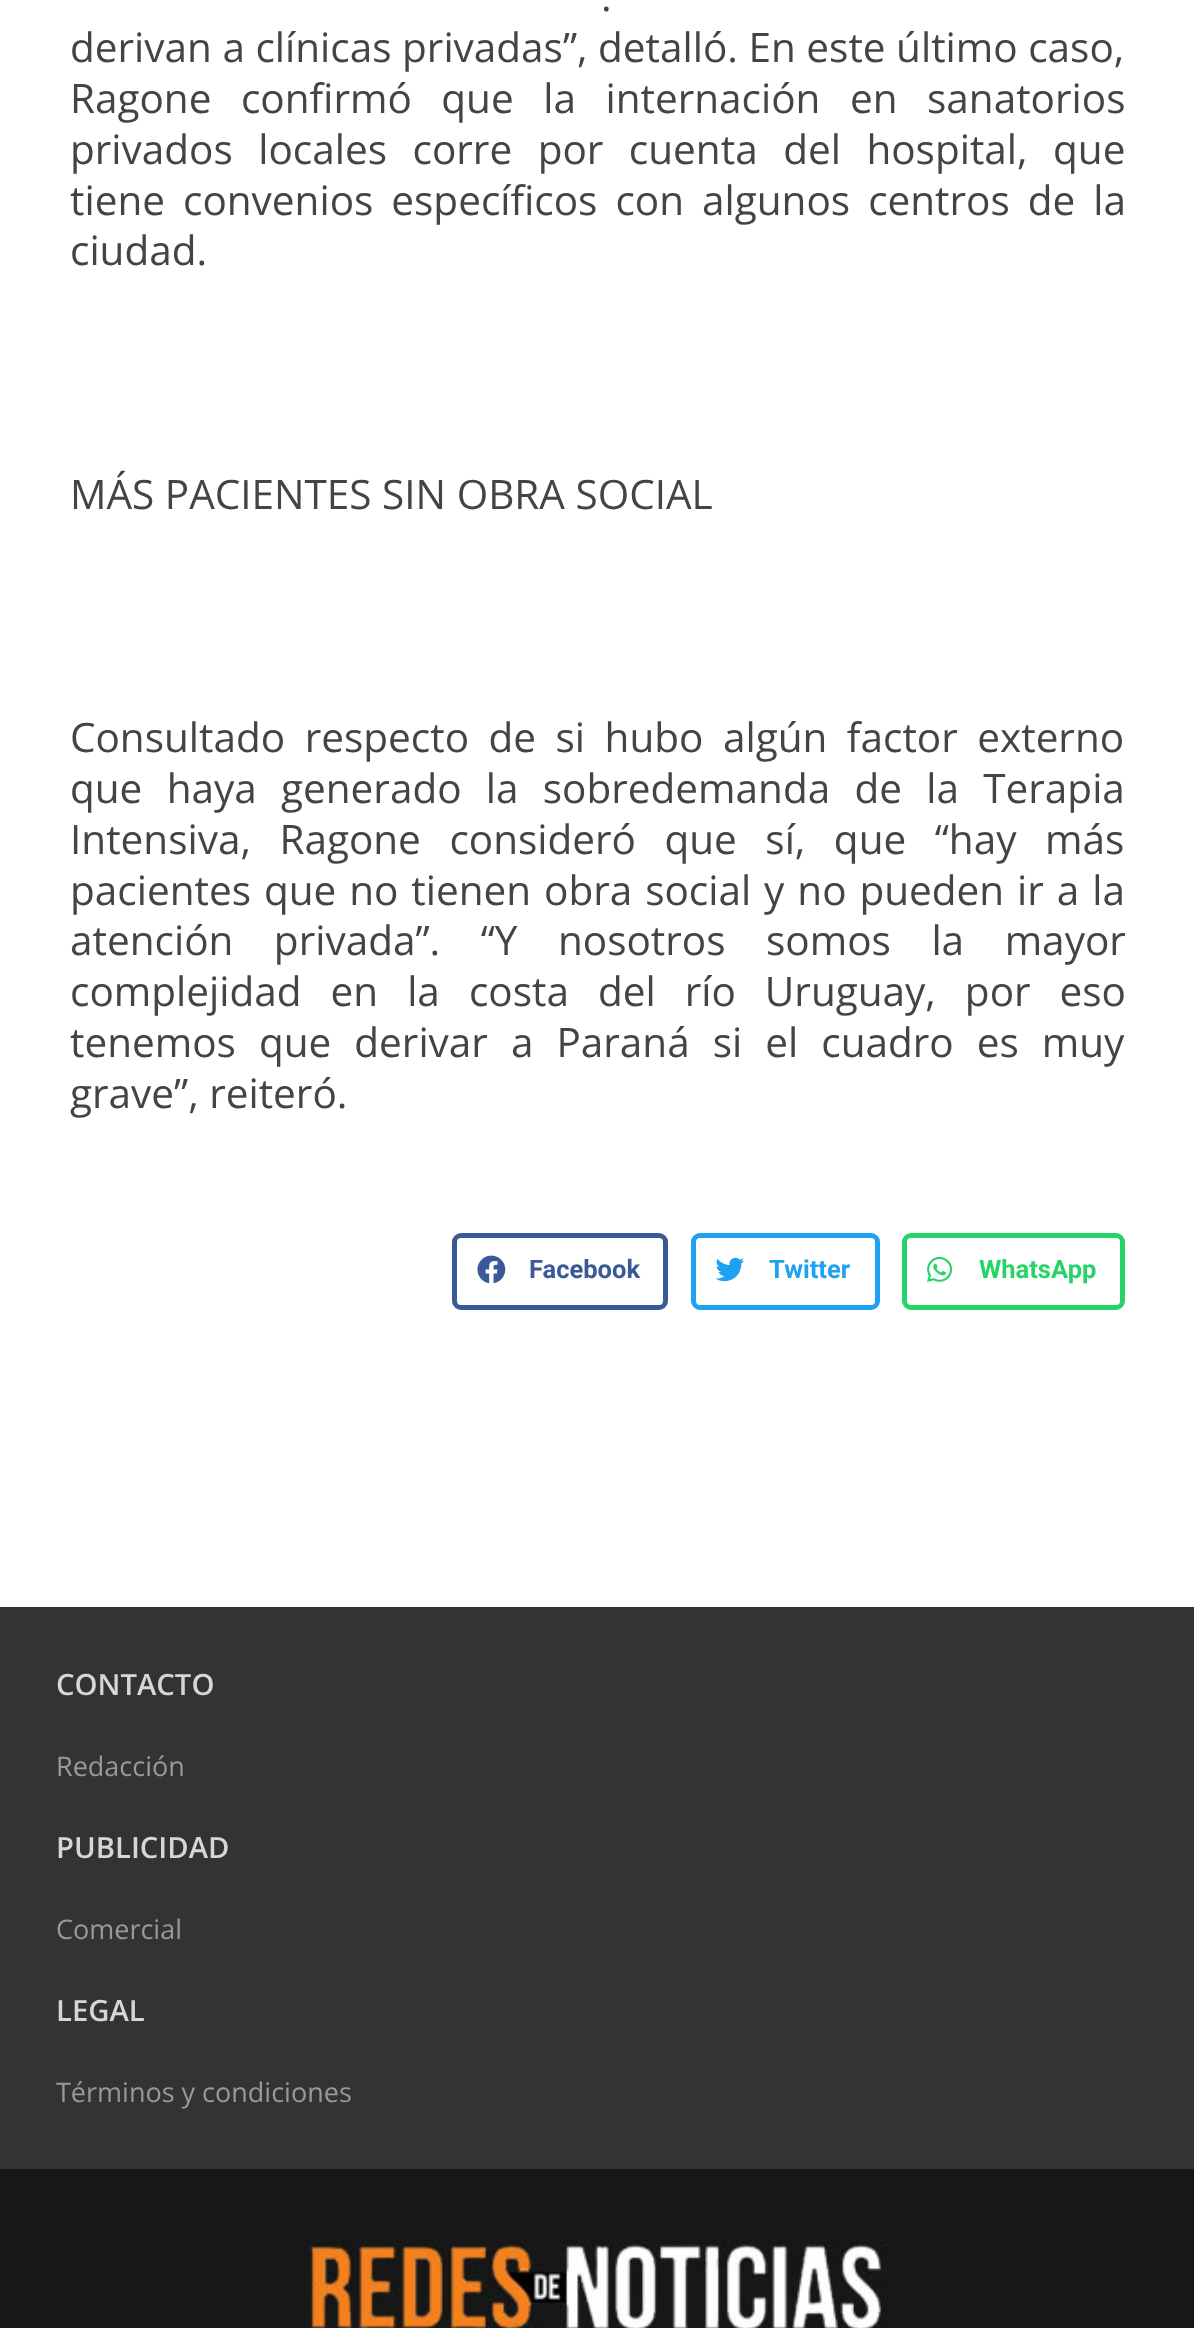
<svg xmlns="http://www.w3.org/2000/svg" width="1194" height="2328">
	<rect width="100%" height="100%" fill="#FFFFFF" />
	<g font-family="Open Sans" font-size="40.5" fill="#444444">
		<text x="601" y="11" word-spacing="15">.</text>
		<text x="70" y="62">derivan a clínicas privadas”, detalló. En este último caso,</text>
		<text x="70" y="113" word-spacing="19">Ragone confirmó que la internación en sanatorios</text>
		<text x="70" y="164" word-spacing="15">privados locales corre por cuenta del hospital, que</text>
		<text x="70" y="215" word-spacing="7.5">tiene convenios específicos con algunos centros de la</text>
		<text x="70" y="265">ciudad.</text>
		<text x="70" y="509">MÁS PACIENTES SIN OBRA SOCIAL</text>
		<text x="70" y="752" word-spacing="9">Consultado respecto de si hubo algún factor externo</text>
		<text x="70" y="803" word-spacing="13.75">que haya generado la sobredemanda de la Terapia</text>
		<text x="70" y="854" word-spacing="18">Intensiva, Ragone consideró que sí, que “hay más</text>
		<text x="70" y="905" word-spacing="2.4">pacientes que no tienen obra social y no pueden ir a la</text>
		<text x="70" y="955" word-spacing="30">atención privada”. “Y nosotros somos la mayor</text>
		<text x="70" y="1006" word-spacing="18.5">complejidad en la costa del río Uruguay, por eso</text>
		<text x="70" y="1057" word-spacing="12.5">tenemos que derivar a Paraná si el cuadro es muy</text>
		<text x="70" y="1108">grave”, reiteró.</text>
	</g>
	<rect x="454.5" y="1235.5" width="211" height="72" rx="6.5" fill="none" stroke="#3B5998" stroke-width="5" />
	<image x="477" y="1255" width="29" height="29" href="assets/img1.png" />
	<text x="529" y="1278" font-family="Roboto" font-size="25.5" font-weight="700" fill="#3B5998">Facebook</text>
	<rect x="693.5" y="1235.5" width="184" height="72" rx="6.5" fill="none" stroke="#1DA1F2" stroke-width="5" />
	<image x="715" y="1257" width="29" height="25" href="assets/img2.png" />
	<text x="769" y="1278" font-family="Roboto" font-size="25.5" font-weight="700" fill="#1DA1F2">Twitter</text>
	<rect x="904.5" y="1235.5" width="218" height="72" rx="6.5" fill="none" stroke="#25D366" stroke-width="5" />
	<image x="927" y="1256" width="26" height="26" href="assets/img3.png" />
	<text x="979" y="1278" font-family="Roboto" font-size="25.5" font-weight="700" fill="#25D366">WhatsApp</text>
	<rect x="0" y="1607" width="1194" height="562" fill="#333333" />
	<text x="56" y="1695" font-family="Open Sans" font-size="29.25" font-weight="600" fill="#D6D6D6">CONTACTO</text>
	<text x="56" y="1776" font-family="Open Sans" font-size="27" fill="#999999">Redacción</text>
	<text x="56" y="1858" font-family="Open Sans" font-size="29.25" font-weight="600" fill="#D6D6D6">PUBLICIDAD</text>
	<text x="56" y="1939" font-family="Open Sans" font-size="27" fill="#999999">Comercial</text>
	<text x="56" y="2021" font-family="Open Sans" font-size="29.25" font-weight="600" fill="#D6D6D6">LEGAL</text>
	<text x="56" y="2102" font-family="Open Sans" font-size="27" fill="#999999">Términos y condiciones</text>
	<rect x="0" y="2169" width="1194" height="159" fill="#171717" />
	<image x="309" y="2240" width="580" height="88" href="assets/img4.png" />
</svg>
